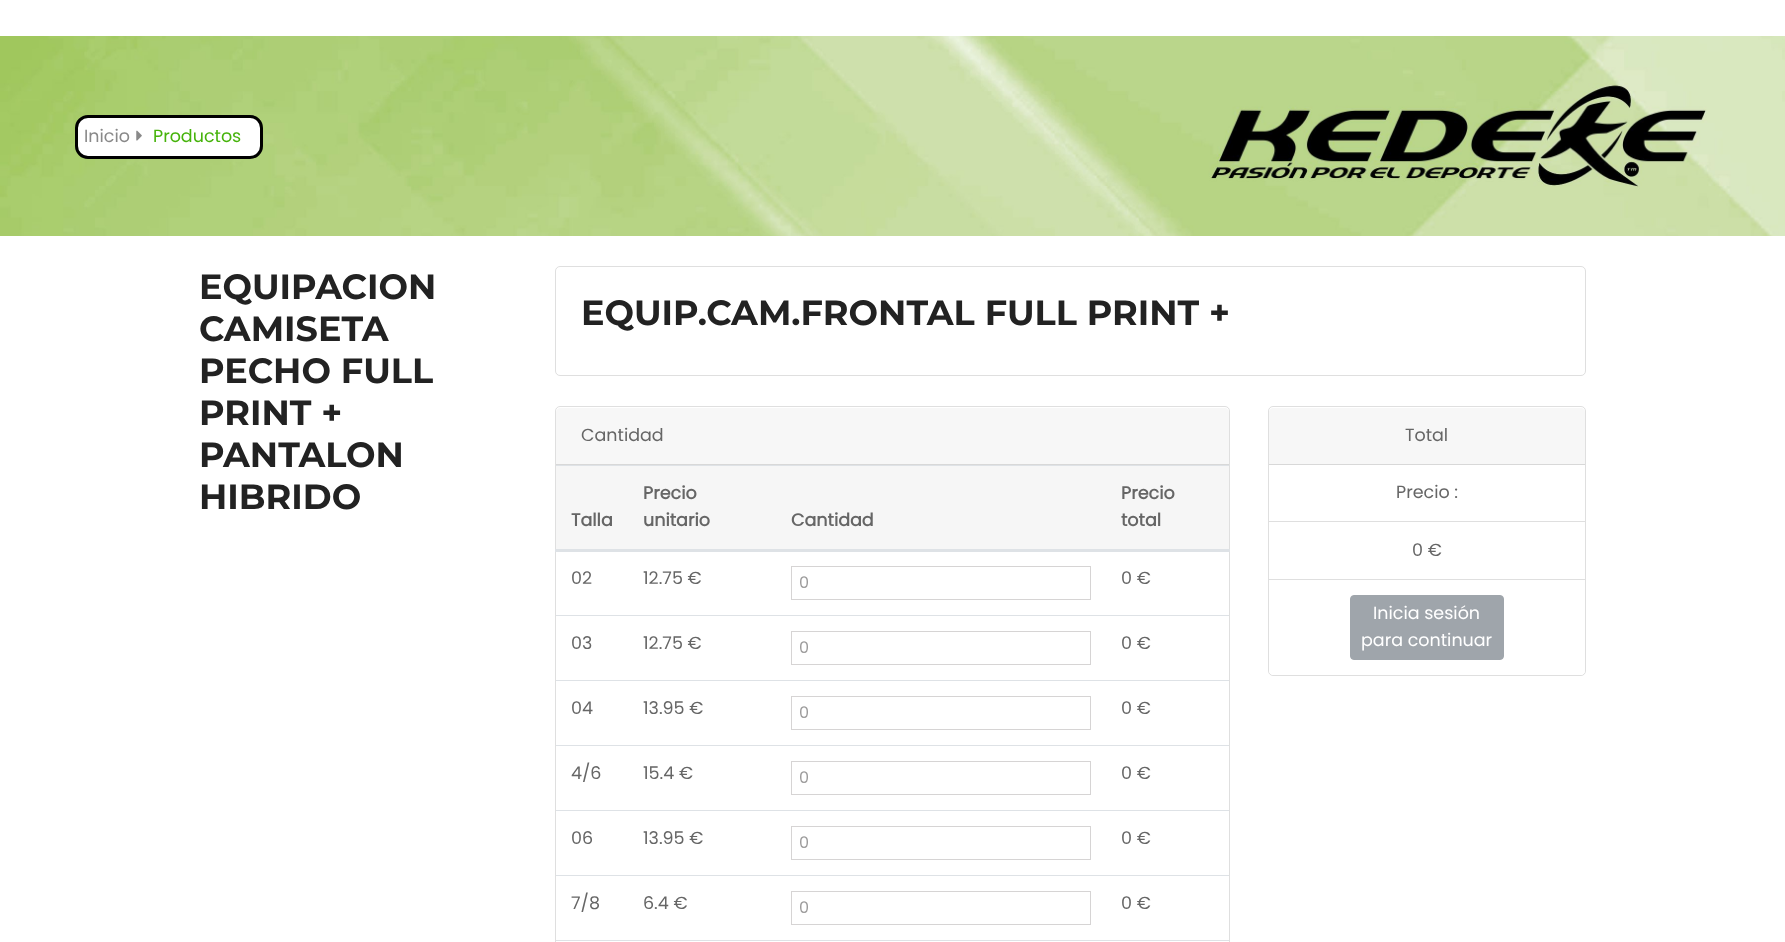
<svg xmlns="http://www.w3.org/2000/svg" width="1785" height="942">
	<rect width="100%" height="100%" fill="#FFFFFF" />
	<image x="0" y="36" width="1785" height="200" href="assets/img1.png" />
	<rect x="76.5" y="116.5" width="185" height="41" rx="11.5" fill="#FFFFFF" stroke="#000000" stroke-width="3" />
	<text x="84" y="142" font-family="Poppins" font-size="17.5" fill="#898989">Inicio</text>
	<image x="136" y="130" width="6" height="11" href="assets/img2.png" />
	<text x="153" y="142" font-family="Poppins" font-size="17.5" fill="#46B30B">Productos</text>
	<g font-family="Montserrat" font-size="35" font-weight="700" fill="#222222">
		<text x="199" y="299">EQUIPACION</text>
		<text x="199" y="341">CAMISETA</text>
		<text x="199" y="383">PECHO FULL</text>
		<text x="199" y="425">PRINT +</text>
		<text x="199" y="467">PANTALON</text>
		<text x="199" y="509">HIBRIDO</text>
	</g>
	<rect x="555.5" y="266.5" width="1030" height="109" rx="4.5" fill="none" stroke="#DFDFDF" />
	<text x="581" y="325" font-family="Montserrat" font-size="35" font-weight="700" fill="#222222">EQUIP.CAM.FRONTAL FULL PRINT +</text>
	<rect x="555.5" y="406.5" width="674" height="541" rx="4.5" fill="none" stroke="#DFDFDF" />
	<path d="M560 408H1225C1227 408 1229 410 1229 412V465H556V412C556 410 558 408 560 408Z" fill="#F7F7F7" />
	<rect x="556" y="464" width="673" height="1" fill="#D8D8D8" />
	<text x="581" y="441" font-family="Poppins" font-size="17.5" fill="#666666">Cantidad</text>
	<rect x="556" y="466" width="673" height="83" fill="#F6F6F6" />
	<g font-family="Poppins" font-size="17.5" font-weight="700" fill="#666666">
		<text x="571" y="526">Talla</text>
		<text x="643" y="499">Precio</text>
		<text x="643" y="526">unitario</text>
		<text x="791" y="526">Cantidad</text>
	</g>
	<rect x="556" y="465" width="673" height="1" fill="#DEE2E6" />
	<rect x="555" y="549" width="675" height="3" fill="#DEE2E6" />
	<g font-family="Poppins" font-size="17.5" font-weight="700" fill="#666666">
		<text x="1121" y="499">Precio</text>
		<text x="1121" y="526">total</text>
	</g>
	<g font-family="Poppins" font-size="17.5" fill="#666666">
		<text x="571" y="584">02</text>
		<text x="643" y="584">12.75 €</text>
	</g>
	<rect x="791.5" y="566.5" width="299" height="33" fill="none" stroke="#D6D4D4" />
	<text x="799" y="588" font-family="Poppins" font-size="16" fill="#9C9B9B">0</text>
	<g font-family="Poppins" font-size="17.5" fill="#666666">
		<text x="1121" y="584">0 €</text>
		<text x="571" y="649">03</text>
		<text x="643" y="649">12.75 €</text>
	</g>
	<rect x="791.5" y="631.5" width="299" height="33" fill="none" stroke="#D6D4D4" />
	<text x="799" y="653" font-family="Poppins" font-size="16" fill="#9C9B9B">0</text>
	<rect x="556" y="615" width="673" height="1" fill="#DEE2E6" />
	<g font-family="Poppins" font-size="17.5" fill="#666666">
		<text x="1121" y="649">0 €</text>
		<text x="571" y="714">04</text>
		<text x="643" y="714">13.95 €</text>
	</g>
	<rect x="791.5" y="696.5" width="299" height="33" fill="none" stroke="#D6D4D4" />
	<text x="799" y="718" font-family="Poppins" font-size="16" fill="#9C9B9B">0</text>
	<rect x="556" y="680" width="673" height="1" fill="#DEE2E6" />
	<g font-family="Poppins" font-size="17.5" fill="#666666">
		<text x="1121" y="714">0 €</text>
		<text x="571" y="779">4/6</text>
		<text x="643" y="779">15.4 €</text>
	</g>
	<rect x="791.5" y="761.5" width="299" height="33" fill="none" stroke="#D6D4D4" />
	<text x="799" y="783" font-family="Poppins" font-size="16" fill="#9C9B9B">0</text>
	<rect x="556" y="745" width="673" height="1" fill="#DEE2E6" />
	<g font-family="Poppins" font-size="17.5" fill="#666666">
		<text x="1121" y="779">0 €</text>
		<text x="571" y="844">06</text>
		<text x="643" y="844">13.95 €</text>
	</g>
	<rect x="791.5" y="826.5" width="299" height="33" fill="none" stroke="#D6D4D4" />
	<text x="799" y="848" font-family="Poppins" font-size="16" fill="#9C9B9B">0</text>
	<rect x="556" y="810" width="673" height="1" fill="#DEE2E6" />
	<g font-family="Poppins" font-size="17.5" fill="#666666">
		<text x="1121" y="844">0 €</text>
		<text x="571" y="909">7/8</text>
		<text x="643" y="909">6.4 €</text>
	</g>
	<rect x="791.5" y="891.5" width="299" height="33" fill="none" stroke="#D6D4D4" />
	<text x="799" y="913" font-family="Poppins" font-size="16" fill="#9C9B9B">0</text>
	<rect x="556" y="875" width="673" height="1" fill="#DEE2E6" />
	<text x="1121" y="909" font-family="Poppins" font-size="17.5" fill="#666666">0 €</text>
	<rect x="556" y="940" width="673" height="1" fill="#DEE2E6" />
	<rect x="1268.5" y="406.5" width="317" height="269" rx="4.5" fill="none" stroke="#DFDFDF" />
	<path d="M1273 408H1581C1583 408 1585 410 1585 412V465H1269V412C1269 410 1271 408 1273 408Z" fill="#F7F7F7" />
	<rect x="1269" y="464" width="316" height="1" fill="#D8D8D8" />
	<g font-family="Poppins" font-size="17.5" fill="#666666">
		<text x="1405" y="441">Total</text>
		<text x="1396" y="498">Precio :</text>
	</g>
	<rect x="1269" y="521" width="316" height="1" fill="#DFDFDF" />
	<text x="1412" y="556" font-family="Poppins" font-size="17.5" fill="#666666">0 €</text>
	<path d="M1269 579H1585V670C1585 673 1583 675 1580 675H1274C1271 675 1269 673 1269 670Z" fill="#FFFFFF" />
	<rect x="1269" y="579" width="316" height="1" fill="#DFDFDF" />
	<rect x="1350.5" y="595.5" width="153" height="64" rx="3.5" fill="#9FA5AB" stroke="#9FA5AB" />
	<g font-family="Poppins" font-size="17.5" fill="#FFFFFF">
		<text x="1373" y="619">Inicia sesión</text>
		<text x="1361" y="646">para continuar</text>
	</g>
</svg>
